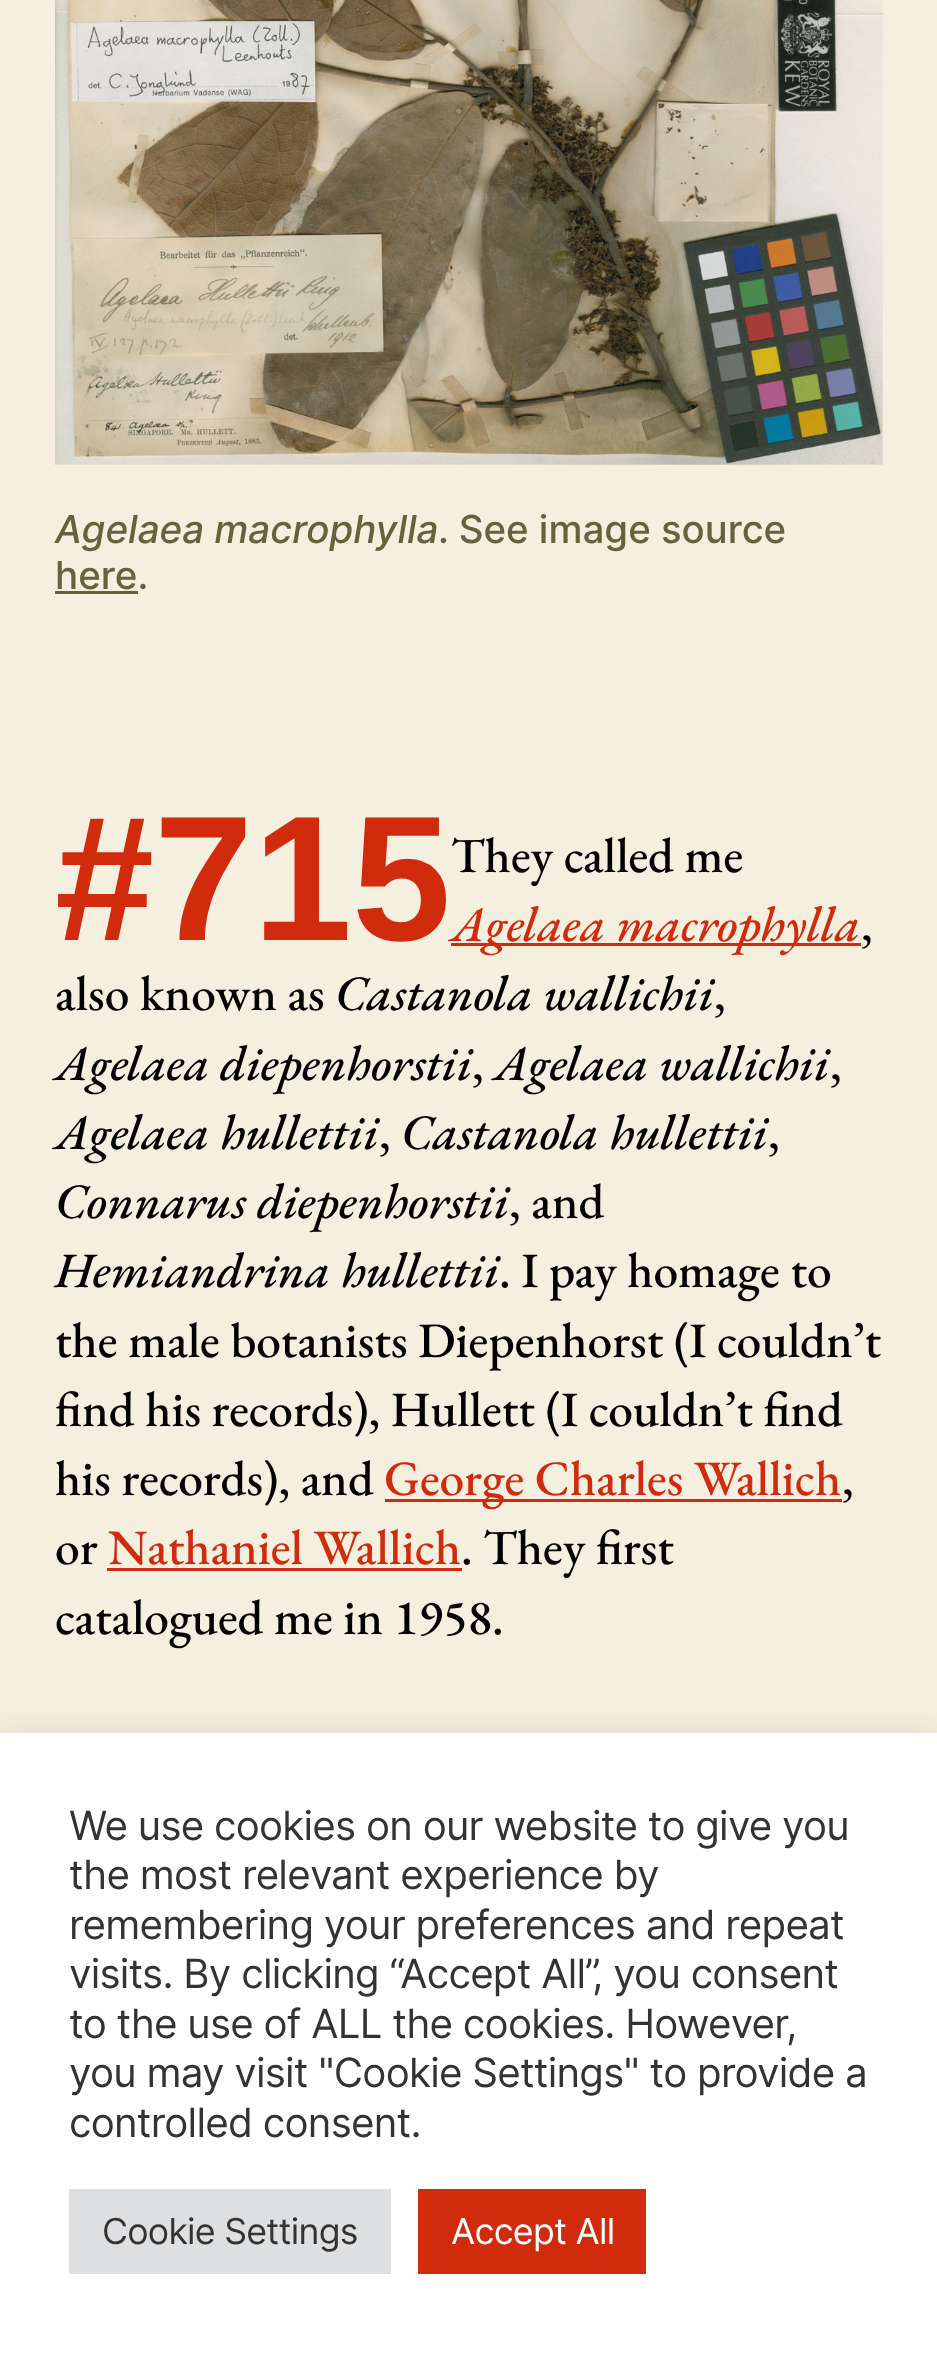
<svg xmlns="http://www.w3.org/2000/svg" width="937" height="2355">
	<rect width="100%" height="100%" fill="#F5EFE0" />
	<image x="55" y="0" width="828" height="465" href="assets/img1.png" />
	<text x="55" y="543" font-family="Inter" font-size="38.5" font-weight="500" font-style="italic" fill="#69603E">Agelaea macrophylla</text>
	<g font-family="Inter" font-size="38.5" font-weight="500" fill="#69603E">
		<text x="438" y="543">. See image source</text>
		<text x="55" y="589">here.</text>
	</g>
	<rect x="55" y="591" width="83" height="3" fill="#69603E" />
	<text x="55" y="940" font-family="Liberation Sans" font-size="178" font-weight="700" fill="#D12B0E">#715</text>
	<text x="451" y="872" font-family="EB Garamond" font-size="49.5" font-weight="500" fill="#000000">They called me</text>
	<rect x="451" y="943" width="410" height="3" fill="#D12B0E" />
	<text x="451" y="941" font-family="EB Garamond" font-size="49.5" font-weight="500" font-style="italic" fill="#D12B0E">Agelaea macrophylla</text>
	<g font-family="EB Garamond" font-size="49.5" font-weight="500" fill="#000000">
		<text x="861" y="941">,</text>
		<text x="55" y="1010">also known as</text>
	</g>
	<text x="335" y="1010" font-family="EB Garamond" font-size="49.5" font-weight="500" font-style="italic" fill="#000000">Castanola wallichii</text>
	<text x="714" y="1010" font-family="EB Garamond" font-size="49.5" font-weight="500" fill="#000000">,</text>
	<text x="55" y="1080" font-family="EB Garamond" font-size="49.5" font-weight="500" font-style="italic" fill="#000000">Agelaea diepenhorstii</text>
	<text x="472" y="1080" font-family="EB Garamond" font-size="49.5" font-weight="500" fill="#000000">,</text>
	<text x="494" y="1080" font-family="EB Garamond" font-size="49.5" font-weight="500" font-style="italic" fill="#000000">Agelaea wallichii</text>
	<text x="830" y="1080" font-family="EB Garamond" font-size="49.5" font-weight="500" fill="#000000">,</text>
	<text x="55" y="1149" font-family="EB Garamond" font-size="49.5" font-weight="500" font-style="italic" fill="#000000">Agelaea hullettii</text>
	<text x="379" y="1149" font-family="EB Garamond" font-size="49.5" font-weight="500" fill="#000000">,</text>
	<text x="401" y="1149" font-family="EB Garamond" font-size="49.5" font-weight="500" font-style="italic" fill="#000000">Castanola hullettii</text>
	<text x="768" y="1149" font-family="EB Garamond" font-size="49.5" font-weight="500" fill="#000000">,</text>
	<text x="55" y="1218" font-family="EB Garamond" font-size="49.5" font-weight="500" font-style="italic" fill="#000000">Connarus diepenhorstii</text>
	<text x="509" y="1218" font-family="EB Garamond" font-size="49.5" font-weight="500" fill="#000000">, and</text>
	<text x="55" y="1287" font-family="EB Garamond" font-size="49.5" font-weight="500" font-style="italic" fill="#000000">Hemiandrina hullettii</text>
	<g font-family="EB Garamond" font-size="49.5" font-weight="500" fill="#000000">
		<text x="499" y="1287">. I pay homage to</text>
		<text x="55" y="1357">the male botanists Diepenhorst (I couldn’t</text>
		<text x="55" y="1426">find his records), Hullett (I couldn’t find</text>
		<text x="55" y="1495">his records), and</text>
	</g>
	<rect x="385" y="1499" width="457" height="3" fill="#D12B0E" />
	<text x="384" y="1495" font-family="EB Garamond" font-size="49.5" font-weight="500" fill="#D12B0E">George Charles Wallich</text>
	<g font-family="EB Garamond" font-size="49.5" font-weight="500" fill="#000000">
		<text x="842" y="1495">,</text>
		<text x="55" y="1564">or</text>
	</g>
	<rect x="107" y="1568" width="355" height="3" fill="#D12B0E" />
	<text x="108" y="1564" font-family="EB Garamond" font-size="49.5" font-weight="500" fill="#D12B0E">Nathaniel Wallich</text>
	<g font-family="EB Garamond" font-size="49.5" font-weight="500" fill="#000000">
		<text x="461" y="1564">. They first</text>
		<text x="55" y="1634">catalogued me in 1958.</text>
	</g>
	<rect x="0" y="1730" width="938" height="624" fill="#ACABAB" fill-opacity="0.3" filter="blur(14px)" />
	<rect x="0" y="1733" width="937" height="622" fill="#FFFFFF" />
	<g font-family="Inter" font-size="40.3" letter-spacing="-0.75" fill="#333333">
		<text x="69" y="1840">We use cookies on our website to give you</text>
		<text x="69" y="1889">the most relevant experience by</text>
		<text x="69" y="1939">remembering your preferences and repeat</text>
		<text x="69" y="1988">visits. By clicking “Accept All”, you consent</text>
		<text x="69" y="2038">to the use of ALL the cookies. However,</text>
		<text x="69" y="2087">you may visit "Cookie Settings" to provide a</text>
		<text x="69" y="2137">controlled consent.</text>
	</g>
	<rect x="69" y="2189" width="322" height="85" fill="#DEDFE0" />
	<text x="102" y="2244" font-family="Inter" font-size="35.75" letter-spacing="-0.75" fill="#333333">Cookie Settings</text>
	<rect x="418" y="2189" width="228" height="85" fill="#D12B0E" />
	<text x="451" y="2244" font-family="Inter" font-size="35.75" letter-spacing="-0.75" fill="#FFFFFF">Accept All</text>
</svg>
